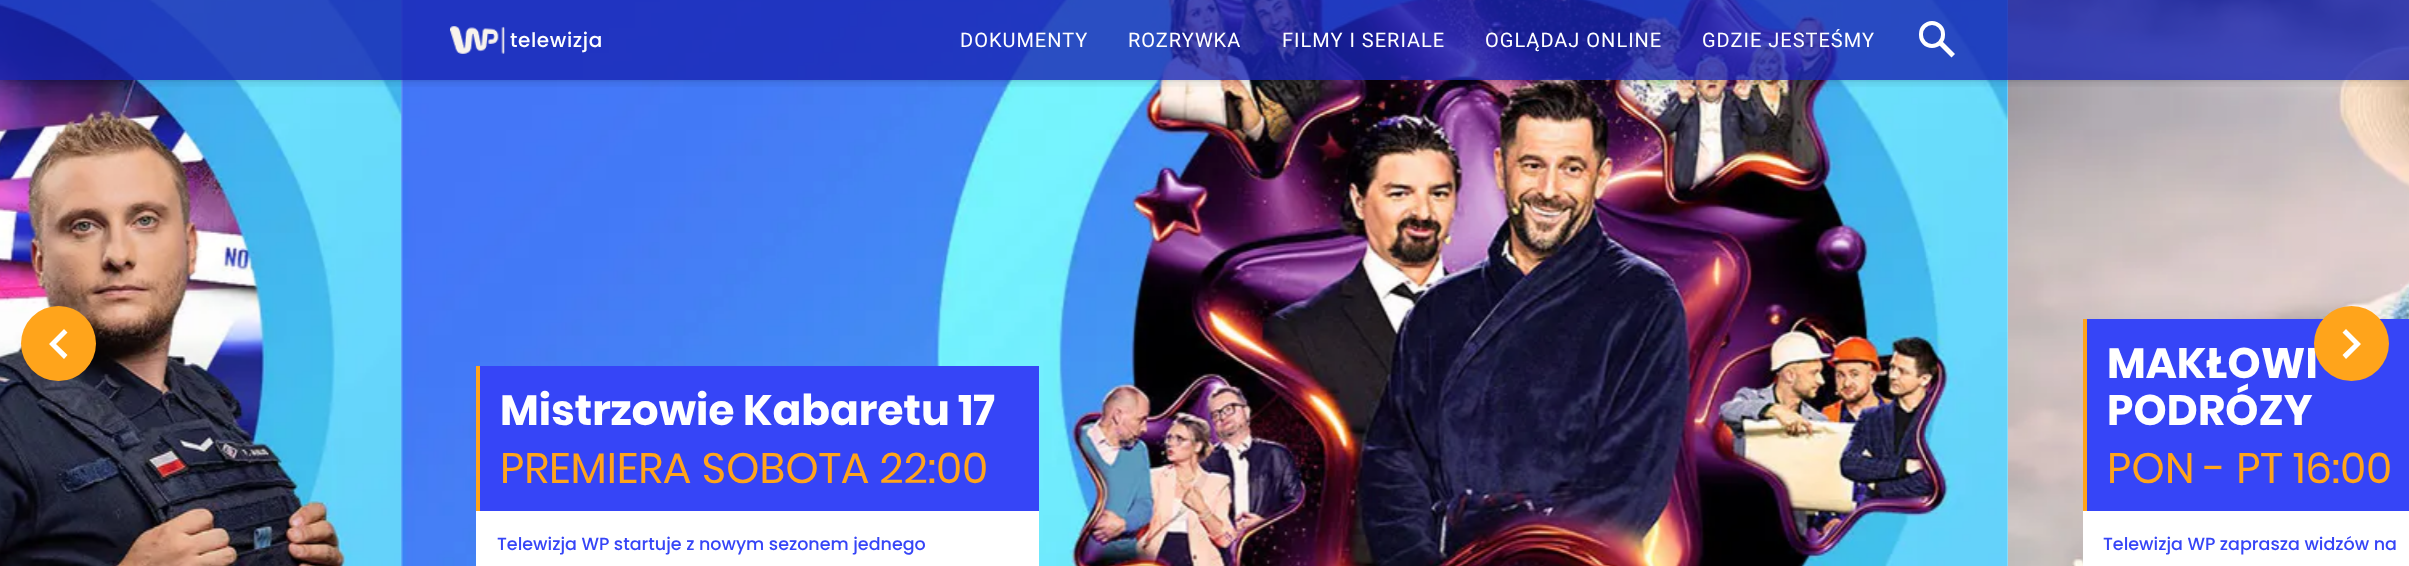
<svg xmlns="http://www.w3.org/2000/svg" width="2409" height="566">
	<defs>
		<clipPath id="clip1"><rect x="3" y="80" width="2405" height="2" /></clipPath>
		<clipPath id="clip2"><rect x="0" y="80" width="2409" height="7" /></clipPath>
	</defs>
	<rect width="100%" height="100%" fill="#FFFFFF" />
	<image x="0" y="0" width="402" height="566" href="assets/img2.png" />
	<image x="401" y="0" width="1607" height="566" href="assets/img3.png" />
	<image x="2008" y="0" width="401" height="566" href="assets/img4.png" />
	<g clip-path="url(#clip1)">
		<rect x="3" y="5" width="2405" height="75" fill="#000000" fill-opacity="0.1" filter="blur(2.5px)" />
	</g>
	<g clip-path="url(#clip2)">
		<rect x="1" y="6" width="2408" height="78" fill="#000000" fill-opacity="0.1" filter="blur(4px)" />
	</g>
	<rect x="0" y="0" width="2409" height="80" fill="#1824B3" fill-opacity="0.8" />
	<image x="450" y="26" width="55" height="28" href="assets/img1.png" />
	<text x="510" y="47" font-family="Poppins" font-size="20" font-weight="500" letter-spacing="0.6" fill="#FFFFFF">telewizja</text>
	<g font-family="Roboto" font-size="20" letter-spacing="1" fill="#FFFFFF">
		<text x="960" y="47">DOKUMENTY</text>
		<text x="1128" y="47">ROZRYWKA</text>
		<text x="1282" y="47">FILMY I SERIALE</text>
		<text x="1485" y="47">OGLĄDAJ ONLINE</text>
		<text x="1702" y="47">GDZIE JESTEŚMY</text>
	</g>
	<rect x="1921" y="23" width="22" height="23" rx="11" fill="none" stroke="#FFFFFF" stroke-width="4" />
	<path d="M1941 40L1955 54L1951.5 57.5L1937.5 43.5Z" fill="#FFFFFF" />
	<circle cx="58.5" cy="343.5" r="37.5" fill="#FFA41B" />
	<path d="M67.5 355L56 344L67.5 332.5L64 329L49 344L64 359Z" fill="#FFFFFF" />
	<rect x="2087" y="319" width="322" height="192" fill="#3645F7" />
	<text x="2107" y="378" font-family="Poppins" font-size="42.5" font-weight="700" fill="#FFFFFF">MAKŁOWI</text>
	<circle cx="2351.5" cy="343.5" r="37.5" fill="#FFA41B" />
	<path d="M2342.5 355L2354 344L2342.5 332.5L2346 329L2361 344L2346 359Z" fill="#FFFFFF" />
	<rect x="476" y="511" width="563" height="55" fill="#FFFFFF" />
	<rect x="480" y="366" width="559" height="145" fill="#3645F7" />
	<rect x="476" y="366" width="4" height="145" fill="#FFA41B" />
	<text x="500" y="425" font-family="Poppins" font-size="42.5" font-weight="700" fill="#FFFFFF">Mistrzowie Kabaretu 17</text>
	<text x="500" y="483" font-family="Poppins" font-size="42.5" fill="#FFA41B">PREMIERA SOBOTA 22:00</text>
	<text x="497" y="550" font-family="Poppins" font-size="17.5" font-weight="500" fill="#3645F7">Telewizja WP startuje z nowym sezonem jednego</text>
	<rect x="2083" y="511" width="326" height="55" fill="#FFFFFF" />
	<rect x="2083" y="319" width="4" height="192" fill="#FFA41B" />
	<text x="2107" y="425" font-family="Poppins" font-size="42.5" font-weight="700" fill="#FFFFFF">PODRÓZY</text>
	<text x="2107" y="483" font-family="Poppins" font-size="42.5" fill="#FFA41B">PON - PT 16:00</text>
	<text x="2103" y="550" font-family="Poppins" font-size="17.5" font-weight="500" fill="#3645F7">Telewizja WP zaprasza widzów na</text>
</svg>
